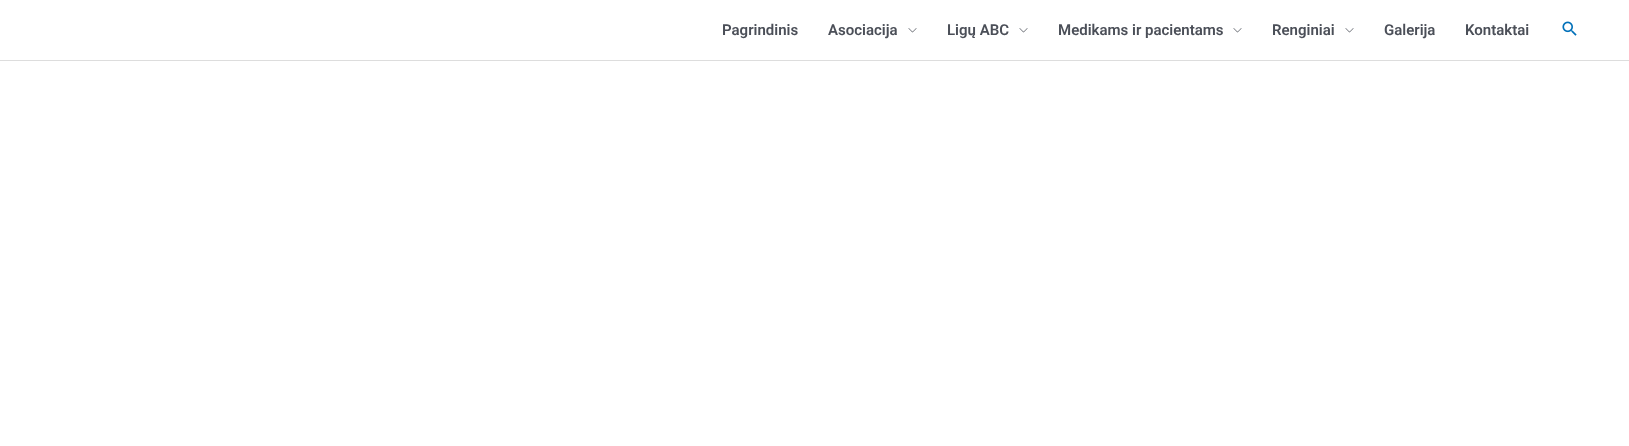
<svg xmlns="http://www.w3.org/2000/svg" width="1629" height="446">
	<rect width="100%" height="100%" fill="#FFFFFF" />
	<rect x="0" y="60" width="1629" height="1" fill="#DDDDDD" />
	<g font-family="Roboto" font-size="15" font-weight="600" fill="#4B4F58">
		<text x="722" y="35">Pagrindinis</text>
		<text x="828" y="35">Asociacija</text>
	</g>
	<image x="908" y="28" width="9" height="5" href="assets/img1.png" />
	<text x="947" y="35" font-family="Roboto" font-size="15" font-weight="600" fill="#4B4F58">Ligų ABC</text>
	<image x="1019" y="28" width="9" height="5" href="assets/img1.png" />
	<text x="1058" y="35" font-family="Roboto" font-size="15" font-weight="600" fill="#4B4F58">Medikams ir pacientams</text>
	<image x="1233" y="28" width="9" height="5" href="assets/img1.png" />
	<text x="1272" y="35" font-family="Roboto" font-size="15" font-weight="600" fill="#4B4F58">Renginiai</text>
	<image x="1345" y="28" width="9" height="5" href="assets/img1.png" />
	<g font-family="Roboto" font-size="15" font-weight="600" fill="#4B4F58">
		<text x="1384" y="35">Galerija</text>
		<text x="1465" y="35">Kontaktai</text>
	</g>
	<image x="1562" y="21" width="15" height="15" href="assets/img2.png" />
</svg>
